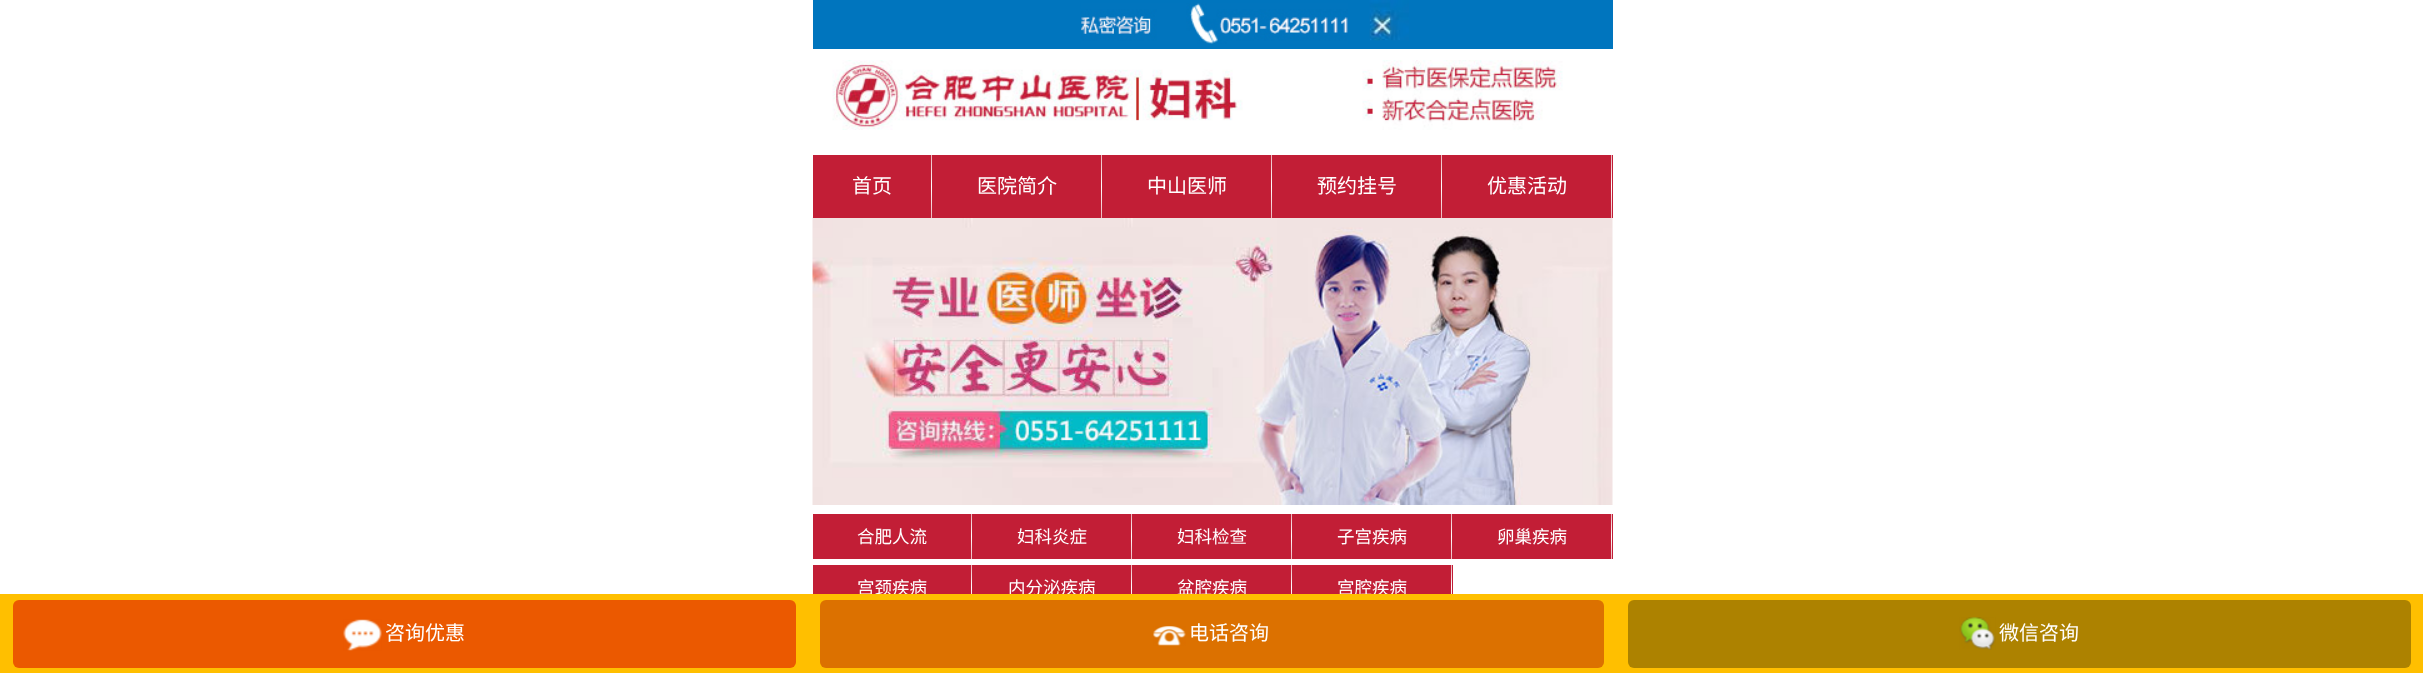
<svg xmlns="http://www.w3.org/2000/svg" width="2423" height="673">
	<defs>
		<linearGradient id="g1" gradientUnits="userSpaceOnUse" x1="932" y1="218" x2="932" y2="155"><stop offset="0" stop-color="#EAB3BB" /><stop offset="0.5" stop-color="#FFFFFF" /><stop offset="1" stop-color="#EAB3BB" /></linearGradient>
		<linearGradient id="g2" gradientUnits="userSpaceOnUse" x1="1102" y1="218" x2="1102" y2="155"><stop offset="0" stop-color="#EAB3BB" /><stop offset="0.5" stop-color="#FFFFFF" /><stop offset="1" stop-color="#EAB3BB" /></linearGradient>
		<linearGradient id="g3" gradientUnits="userSpaceOnUse" x1="1272" y1="218" x2="1272" y2="155"><stop offset="0" stop-color="#EAB3BB" /><stop offset="0.5" stop-color="#FFFFFF" /><stop offset="1" stop-color="#EAB3BB" /></linearGradient>
		<linearGradient id="g4" gradientUnits="userSpaceOnUse" x1="1442" y1="218" x2="1442" y2="155"><stop offset="0" stop-color="#EAB3BB" /><stop offset="0.5" stop-color="#FFFFFF" /><stop offset="1" stop-color="#EAB3BB" /></linearGradient>
		<linearGradient id="g5" gradientUnits="userSpaceOnUse" x1="1612" y1="218" x2="1612" y2="155"><stop offset="0" stop-color="#EAB3BB" /><stop offset="0.5" stop-color="#FFFFFF" /><stop offset="1" stop-color="#EAB3BB" /></linearGradient>
		<linearGradient id="g6" gradientUnits="userSpaceOnUse" x1="972" y1="559" x2="972" y2="514"><stop offset="0" stop-color="#EAB3BB" /><stop offset="0.5" stop-color="#FFFFFF" /><stop offset="1" stop-color="#EAB3BB" /></linearGradient>
		<linearGradient id="g7" gradientUnits="userSpaceOnUse" x1="1132" y1="559" x2="1132" y2="514"><stop offset="0" stop-color="#EAB3BB" /><stop offset="0.5" stop-color="#FFFFFF" /><stop offset="1" stop-color="#EAB3BB" /></linearGradient>
		<linearGradient id="g8" gradientUnits="userSpaceOnUse" x1="1612" y1="559" x2="1612" y2="514"><stop offset="0" stop-color="#EAB3BB" /><stop offset="0.5" stop-color="#FFFFFF" /><stop offset="1" stop-color="#EAB3BB" /></linearGradient>
		<linearGradient id="g9" gradientUnits="userSpaceOnUse" x1="972" y1="610" x2="972" y2="565"><stop offset="0" stop-color="#EAB3BB" /><stop offset="0.5" stop-color="#FFFFFF" /><stop offset="1" stop-color="#EAB3BB" /></linearGradient>
		<linearGradient id="g10" gradientUnits="userSpaceOnUse" x1="1292" y1="559" x2="1292" y2="514"><stop offset="0" stop-color="#EAB3BB" /><stop offset="0.5" stop-color="#FFFFFF" /><stop offset="1" stop-color="#EAB3BB" /></linearGradient>
		<linearGradient id="g11" gradientUnits="userSpaceOnUse" x1="1452" y1="559" x2="1452" y2="514"><stop offset="0" stop-color="#EAB3BB" /><stop offset="0.5" stop-color="#FFFFFF" /><stop offset="1" stop-color="#EAB3BB" /></linearGradient>
		<linearGradient id="g12" gradientUnits="userSpaceOnUse" x1="1132" y1="610" x2="1132" y2="565"><stop offset="0" stop-color="#EAB3BB" /><stop offset="0.5" stop-color="#FFFFFF" /><stop offset="1" stop-color="#EAB3BB" /></linearGradient>
		<linearGradient id="g13" gradientUnits="userSpaceOnUse" x1="1292" y1="610" x2="1292" y2="565"><stop offset="0" stop-color="#EAB3BB" /><stop offset="0.5" stop-color="#FFFFFF" /><stop offset="1" stop-color="#EAB3BB" /></linearGradient>
		<linearGradient id="g14" gradientUnits="userSpaceOnUse" x1="1452" y1="610" x2="1452" y2="565"><stop offset="0" stop-color="#EAB3BB" /><stop offset="0.5" stop-color="#FFFFFF" /><stop offset="1" stop-color="#EAB3BB" /></linearGradient>
	</defs>
	<rect width="100%" height="100%" fill="#FFFFFF" />
	<image x="832" y="60" width="731" height="70" href="assets/img1.png" />
	<image x="812" y="217" width="801" height="288" href="assets/img2.png" />
	<rect x="813" y="155" width="800" height="63" fill="#C21E36" />
	<text x="852" y="193" font-family="Noto Sans CJK SC" font-size="20" fill="#FFFFFF">首页</text>
	<rect x="931" y="155" width="1" height="63" fill="url(#g1)" />
	<text x="977" y="193" font-family="Noto Sans CJK SC" font-size="20" fill="#FFFFFF">医院简介</text>
	<rect x="1101" y="155" width="1" height="63" fill="url(#g2)" />
	<text x="1147" y="193" font-family="Noto Sans CJK SC" font-size="20" fill="#FFFFFF">中山医师</text>
	<rect x="1271" y="155" width="1" height="63" fill="url(#g3)" />
	<text x="1317" y="193" font-family="Noto Sans CJK SC" font-size="20" fill="#FFFFFF">预约挂号</text>
	<rect x="1441" y="155" width="1" height="63" fill="url(#g4)" />
	<text x="1487" y="193" font-family="Noto Sans CJK SC" font-size="20" fill="#FFFFFF">优惠活动</text>
	<rect x="1611" y="155" width="1" height="63" fill="url(#g5)" />
	<rect x="813" y="514" width="800" height="45" fill="#C21E36" />
	<text x="857" y="543" font-family="Noto Sans CJK SC" font-size="17.5" fill="#FFFFFF">合肥人流</text>
	<rect x="971" y="514" width="1" height="45" fill="url(#g6)" />
	<text x="1017" y="543" font-family="Noto Sans CJK SC" font-size="17.5" fill="#FFFFFF">妇科炎症</text>
	<rect x="1131" y="514" width="1" height="45" fill="url(#g7)" />
	<text x="1497" y="543" font-family="Noto Sans CJK SC" font-size="17.5" fill="#FFFFFF">卵巢疾病</text>
	<rect x="1611" y="514" width="1" height="45" fill="url(#g8)" />
	<rect x="813" y="565" width="640" height="29" fill="#C21E36" />
	<text x="857" y="594" font-family="Noto Sans CJK SC" font-size="17.5" fill="#FFFFFF">宫颈疾病</text>
	<rect x="971" y="565" width="1" height="29" fill="url(#g9)" />
	<text x="1177" y="543" font-family="Noto Sans CJK SC" font-size="17.5" fill="#FFFFFF">妇科检查</text>
	<rect x="1291" y="514" width="1" height="45" fill="url(#g10)" />
	<text x="1337" y="543" font-family="Noto Sans CJK SC" font-size="17.5" fill="#FFFFFF">子宫疾病</text>
	<rect x="1451" y="514" width="1" height="45" fill="url(#g11)" />
	<text x="1008" y="594" font-family="Noto Sans CJK SC" font-size="17.5" fill="#FFFFFF">内分泌疾病</text>
	<rect x="1131" y="565" width="1" height="29" fill="url(#g12)" />
	<text x="1177" y="594" font-family="Noto Sans CJK SC" font-size="17.5" fill="#FFFFFF">盆腔疾病</text>
	<rect x="1291" y="565" width="1" height="29" fill="url(#g13)" />
	<text x="1337" y="594" font-family="Noto Sans CJK SC" font-size="17.5" fill="#FFFFFF">宫腔疾病</text>
	<rect x="1451" y="565" width="1" height="29" fill="url(#g14)" />
	<rect x="813" y="0" width="800" height="49" fill="#0075BE" />
	<image x="1081" y="3" width="267" height="41" href="assets/img3.png" />
	<image x="1369" y="0" width="40" height="41" href="assets/img4.png" />
	<rect x="0" y="594" width="2423" height="79" fill="#FFBF00" />
	<rect x="13" y="600" width="783" height="68" rx="6" fill="#EB5900" />
	<image x="343" y="619" width="39" height="32" href="assets/img5.png" />
	<text x="385" y="640" font-family="Noto Sans CJK SC" font-size="20" fill="#FFFFFF">咨询优惠</text>
	<rect x="820" y="600" width="784" height="68" rx="6" fill="#DC7100" />
	<image x="1153" y="626" width="33" height="20" href="assets/img6.png" />
	<text x="1189" y="640" font-family="Noto Sans CJK SC" font-size="20" fill="#FFFFFF">电话咨询</text>
	<rect x="1628" y="600" width="783" height="68" rx="6" fill="#AD8200" />
	<image x="1959" y="617" width="37" height="33" href="assets/img7.png" />
	<text x="1999" y="640" font-family="Noto Sans CJK SC" font-size="20" fill="#FFFFFF">微信咨询</text>
</svg>
